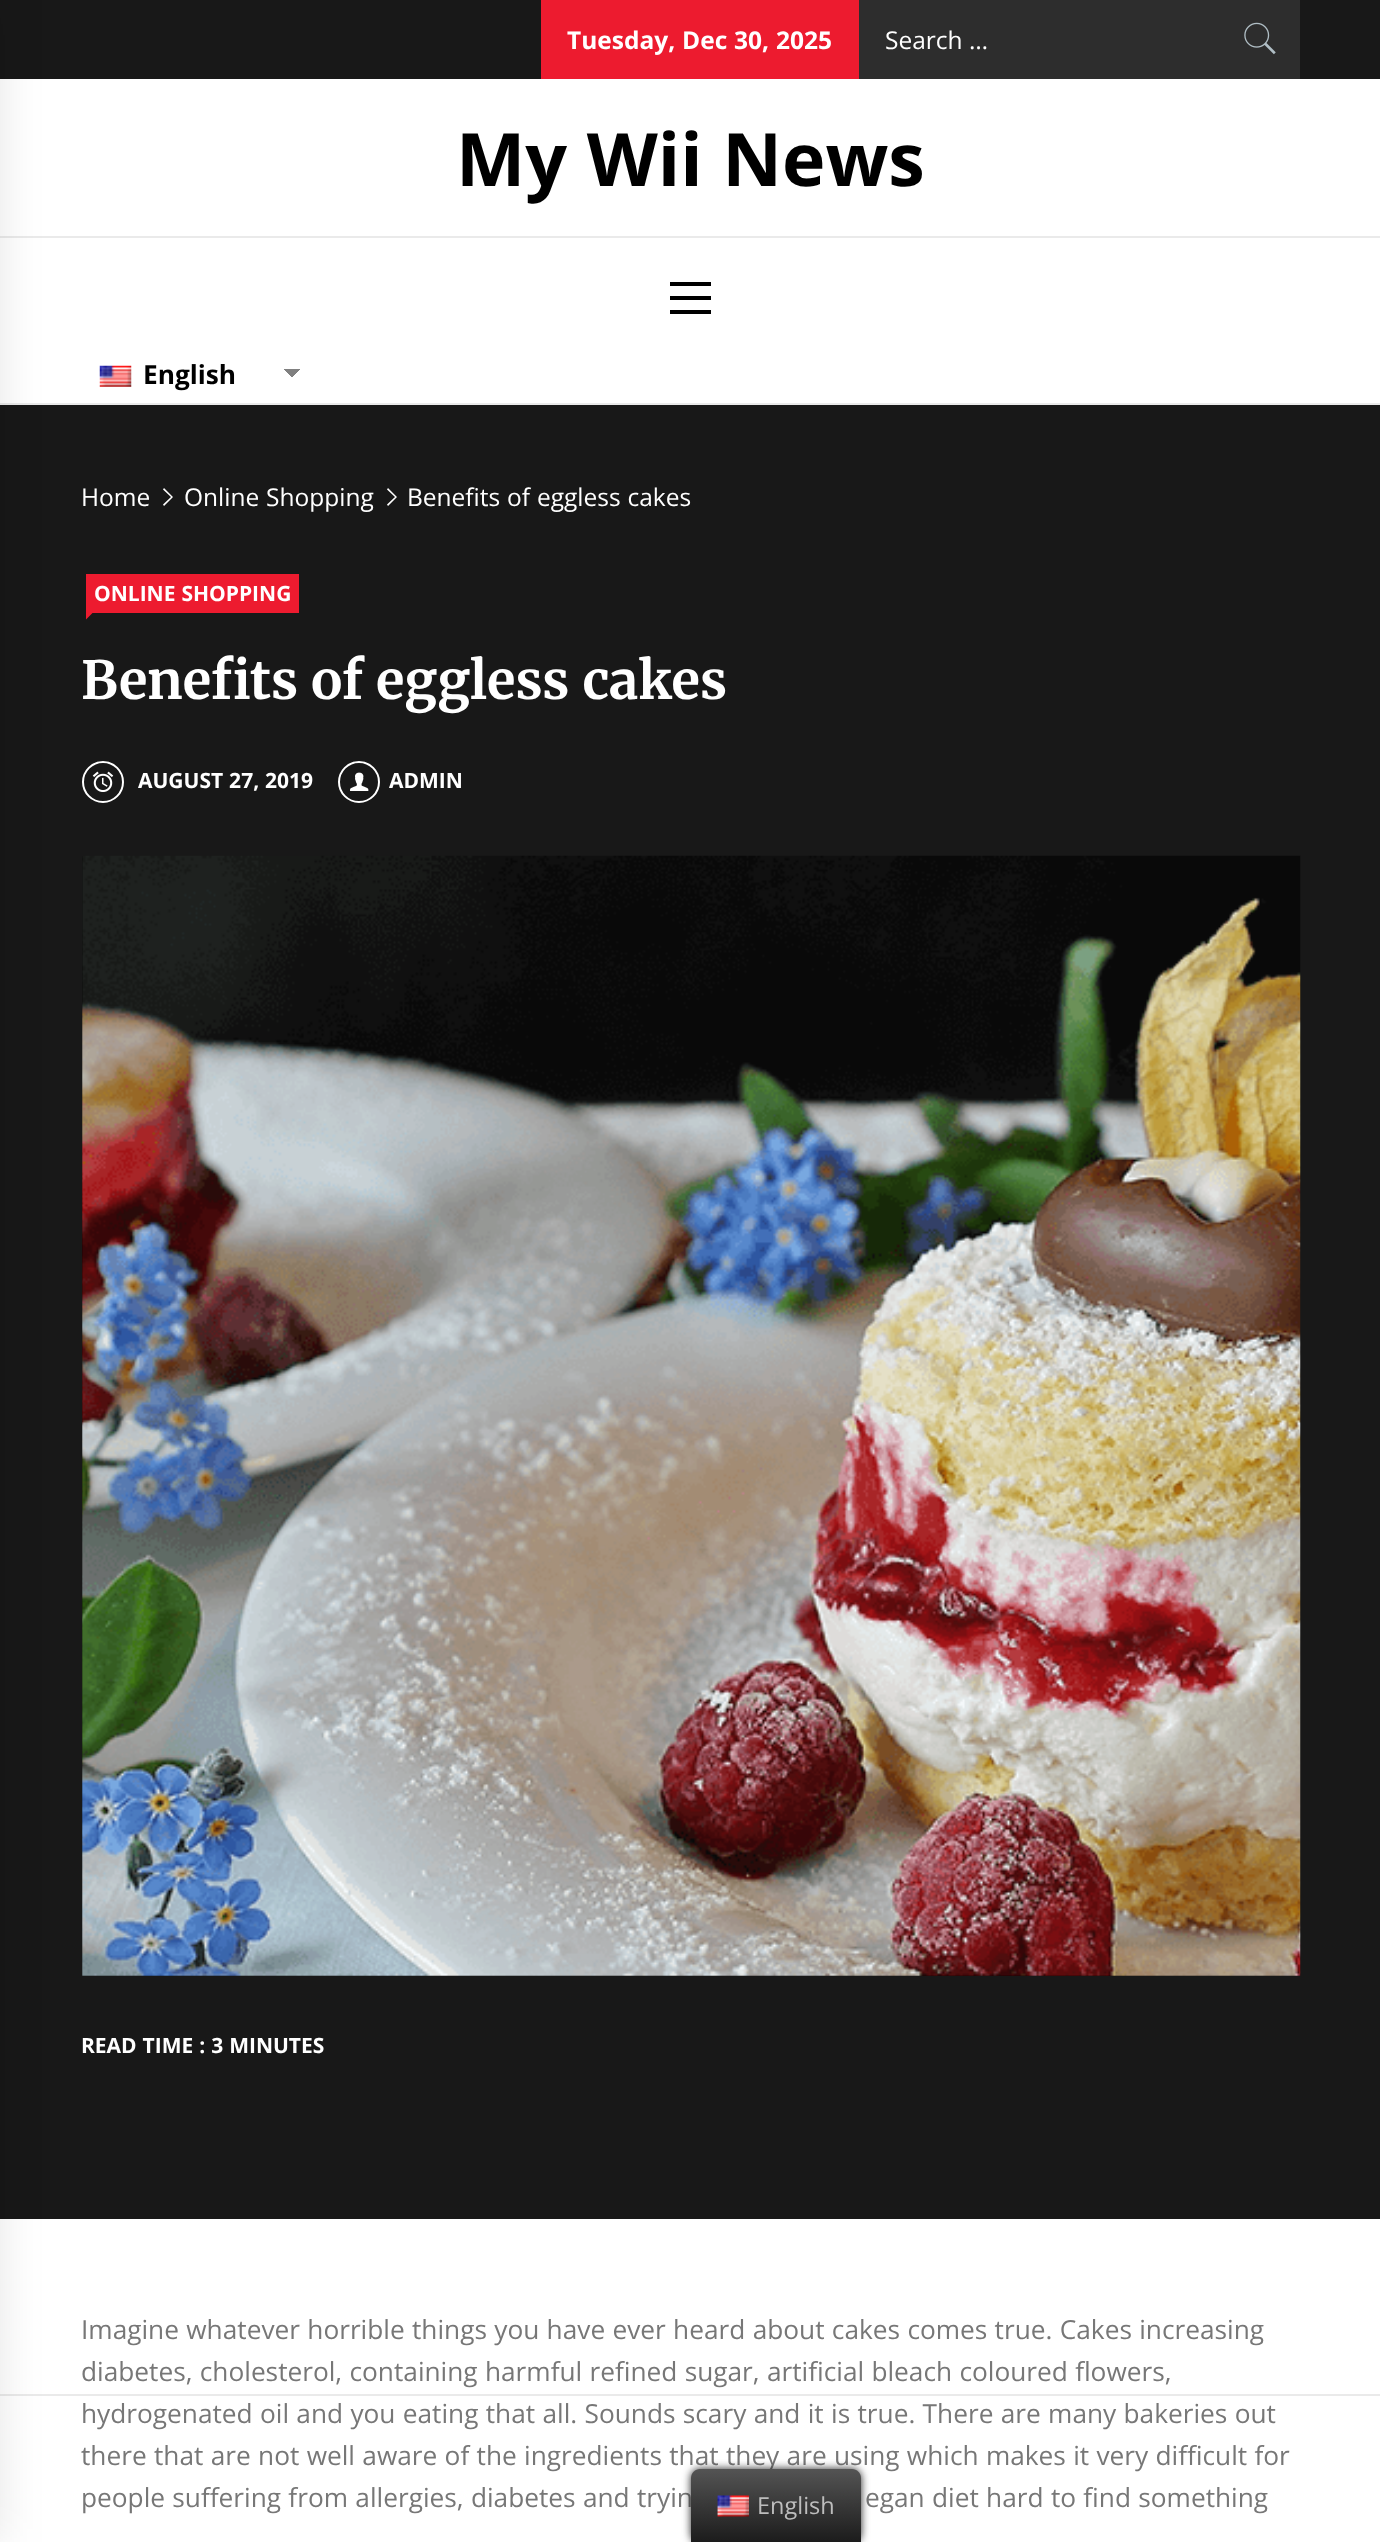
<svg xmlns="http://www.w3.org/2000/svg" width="1380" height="2542">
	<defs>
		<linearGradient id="g1" gradientUnits="userSpaceOnUse" x1="292" y1="369" x2="301" y2="378"><stop offset="0.5" stop-color="#808080" /><stop offset="0.5" stop-color="#FFFFFF" /></linearGradient>
		<linearGradient id="g2" gradientUnits="userSpaceOnUse" x1="284" y1="378" x2="292" y2="369"><stop offset="0.5" stop-color="#FFFFFF" /><stop offset="0.5" stop-color="#808080" /></linearGradient>
		<linearGradient id="g3" gradientUnits="userSpaceOnUse" x1="776" y1="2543" x2="776" y2="2469"><stop offset="0" stop-color="#1B1B1B" /><stop offset="1" stop-color="#545454" /></linearGradient>
	</defs>
	<rect width="100%" height="100%" fill="#FFFFFF" />
	<rect x="0" y="0" width="1380" height="79" fill="#181818" />
	<rect x="0" y="236" width="1380" height="2" fill="#EAEAEA" />
	<rect x="0" y="403" width="1380" height="2" fill="#EAEAEA" />
	<rect x="0" y="405" width="1380" height="1814" fill="#181818" />
	<rect x="0" y="2394" width="1380" height="2" fill="#EAEAEA" />
	<rect x="-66" y="0" width="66" height="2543" fill="#000000" fill-opacity="0.1" filter="blur(22px)" />
	<rect x="541" y="0" width="318" height="79" fill="#ED1B2F" />
	<text x="567" y="49" word-spacing="0.5" font-family="Open Sans" font-size="24.5" font-weight="700" fill="#FFFFFF">Tuesday, Dec 30, 2025</text>
	<rect x="859" y="0" width="441" height="79" fill="#2D2D2D" />
	<text x="885" y="49" font-family="Open Sans" font-size="24.5" fill="#FFFFFF">Search …</text>
	<image x="1244" y="22" width="32" height="33" href="assets/img1.png" />
	<text x="456" y="186" word-spacing="0.5" font-family="Open Sans" font-size="73.5" font-weight="700" fill="#000000">My Wii News</text>
	<rect x="670" y="296" width="41" height="4" fill="#000000" />
	<rect x="670" y="282" width="41" height="4" fill="#000000" />
	<rect x="670" y="310" width="41" height="4" fill="#000000" />
	<rect x="292" y="369" width="9" height="8" fill="url(#g1)" />
	<rect x="284" y="369" width="8" height="9" fill="url(#g2)" />
	<image x="99" y="365" width="33" height="22" href="assets/img2.png" />
	<text x="143" y="384" font-family="Open Sans" font-size="26.25" font-weight="700" fill="#000000">English</text>
	<text x="81" y="506" font-family="Open Sans" font-size="24.5" fill="#FFFFFF">Home</text>
	<path d="M163 489.5L164 488L173 497L164 506L163 504.5L171 497Z" fill="#FFFFFF" />
	<text x="184" y="506" word-spacing="0.5" font-family="Open Sans" font-size="24.5" fill="#FFFFFF">Online Shopping</text>
	<path d="M387 489.5L388 488L397 497L388 506L387 504.5L395 497Z" fill="#FFFFFF" />
	<text x="407" y="506" word-spacing="0.5" font-family="Open Sans" font-size="24.5" fill="#FFFFFF">Benefits of eggless cakes</text>
	<rect x="86" y="574" width="213" height="39" fill="#ED1B2F" />
	<text x="94" y="601" word-spacing="0.5" font-family="Open Sans" font-size="21" font-weight="700" fill="#FFFFFF">ONLINE SHOPPING</text>
	<path d="M86 619.5V612.5H93Z" fill="#ED1B2F" />
	<text x="81" y="699" word-spacing="0.5" font-family="Merriweather" font-size="52.5" font-weight="700" fill="#FFFFFF">Benefits of eggless cakes</text>
	<circle cx="103" cy="782" r="20" fill="none" stroke="#FFFFFF" stroke-width="2" />
	<image x="92" y="771" width="22" height="21" href="assets/img3.png" />
	<text x="138" y="788" word-spacing="0.5" font-family="Open Sans" font-size="21" font-weight="700" fill="#FFFFFF">AUGUST 27, 2019</text>
	<circle cx="359" cy="782" r="20" fill="none" stroke="#FFFFFF" stroke-width="2" />
	<image x="350" y="772" width="19" height="19" href="assets/img4.png" />
	<text x="389" y="788" font-family="Open Sans" font-size="21" font-weight="700" fill="#FFFFFF">ADMIN</text>
	<rect x="82" y="856" width="1218" height="1120" fill="#000000" />
	<image x="82" y="855" width="1219" height="1121" href="assets/img5.png" />
	<text x="81" y="2053" word-spacing="0.5" font-family="Open Sans" font-size="21" font-weight="700" fill="#FFFFFF">READ TIME : 3 MINUTES</text>
	<g font-family="Open Sans" font-size="26.25" fill="#777777">
		<text x="81" y="2339" word-spacing="0.5">Imagine whatever horrible things you have ever heard about cakes comes true. Cakes increasing</text>
		<text x="81" y="2381" word-spacing="0.5">diabetes, cholesterol, containing harmful refined sugar, artificial bleach coloured flowers,</text>
		<text x="81" y="2423" word-spacing="0.5">hydrogenated oil and you eating that all. Sounds scary and it is true. There are many bakeries out</text>
		<text x="81" y="2465" word-spacing="0.5">there that are not well aware of the ingredients that they are using which makes it very difficult for</text>
		<text x="81" y="2507" word-spacing="0.5">people suffering from allergies, diabetes and tryin</text>
		<text x="865" y="2507" word-spacing="0.5">egan diet hard to find something</text>
	</g>
	<rect x="691" y="2469" width="170" height="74" rx="9" fill="#212121" filter="blur(4.5px)" />
	<path d="M700 2469H852C857 2469 861 2473 861 2478V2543H691V2478C691 2473 695 2469 700 2469Z" fill="url(#g3)" />
	<image x="717" y="2495" width="32" height="22" href="assets/img6.png" />
	<text x="757" y="2514" font-family="Open Sans" font-size="23.5" fill="#BDBDBD">English</text>
</svg>
